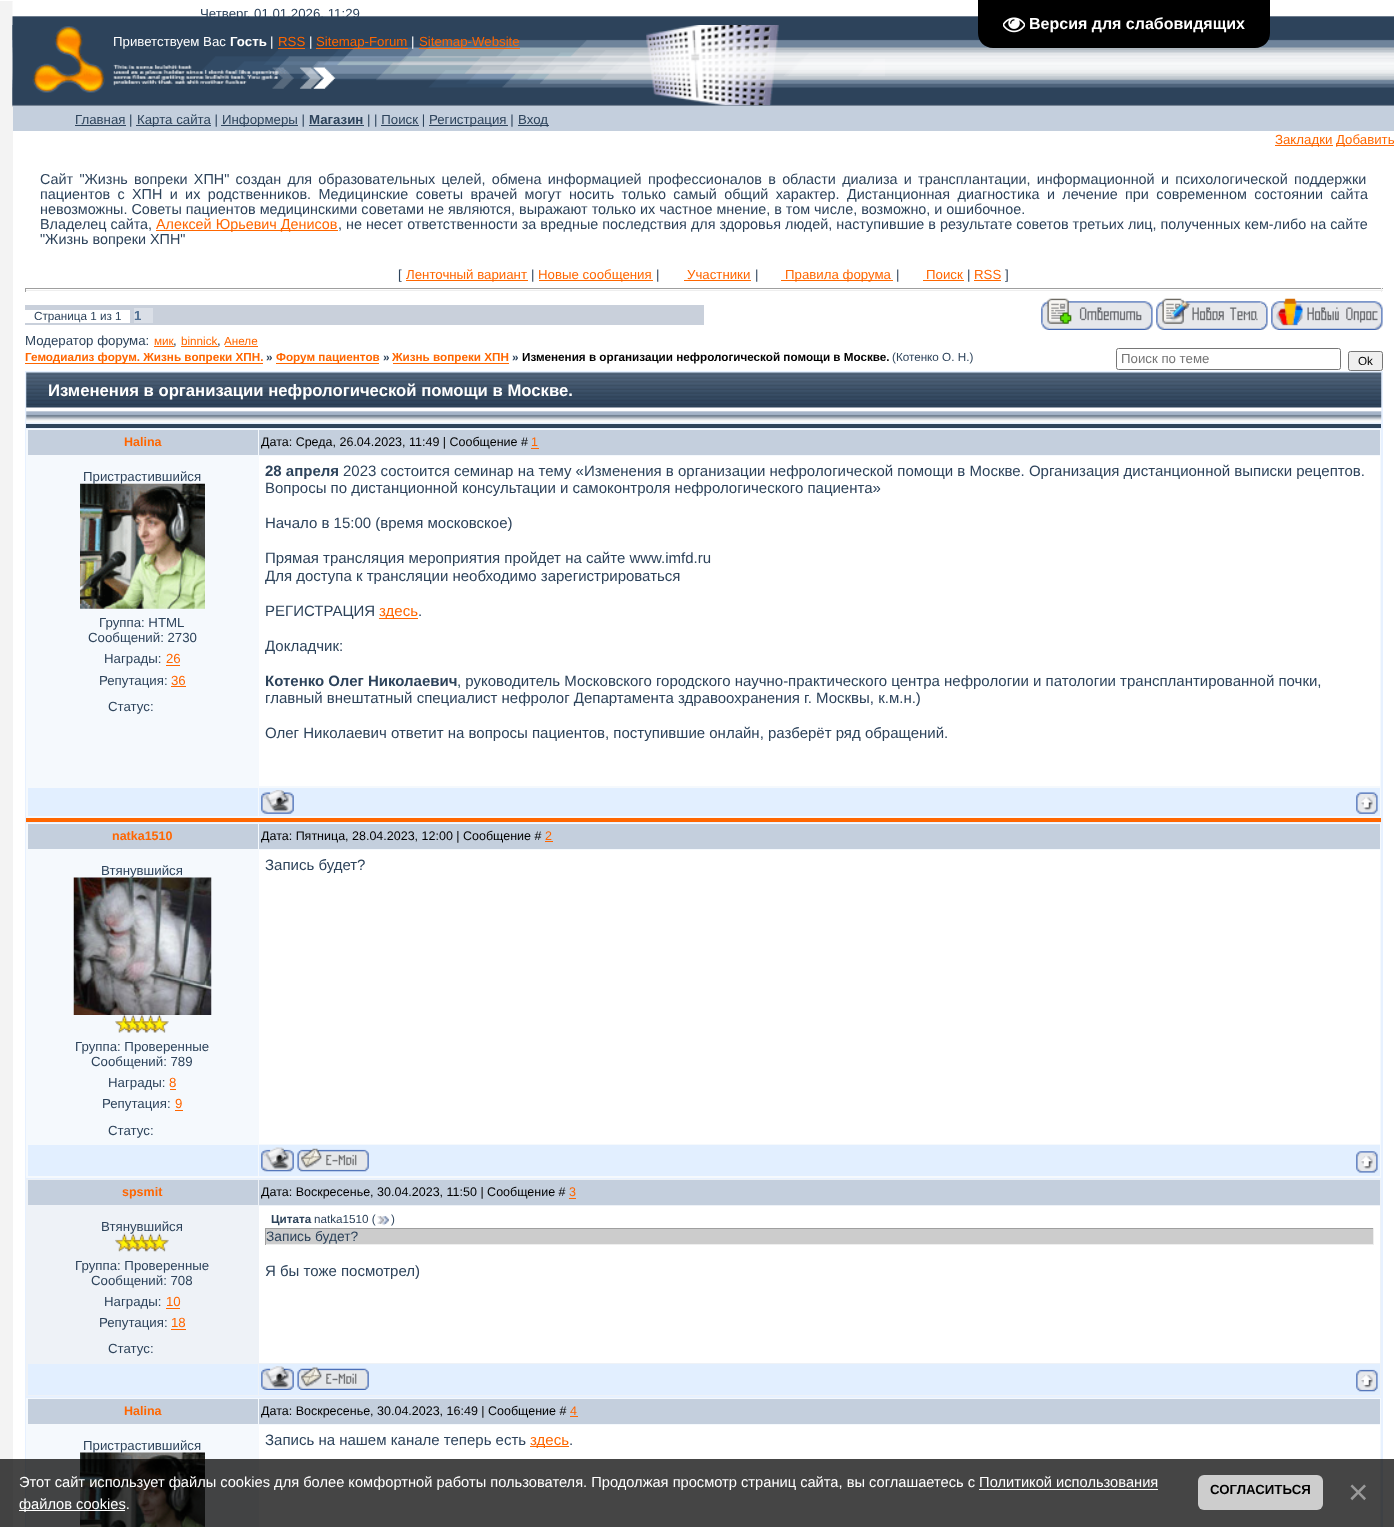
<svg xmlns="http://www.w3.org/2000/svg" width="1394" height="1527">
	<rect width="100%" height="100%" fill="#FFFFFF" />
	<rect x="13" y="1459" width="1381" height="68" fill="#454545" />
	<rect x="0" y="1" width="13" height="1458" fill="#F3F3F3" />
	<rect x="0" y="1459" width="13" height="68" fill="#424242" />
	<image x="12" y="1" width="1382" height="106" href="assets/img1.png" />
	<text x="200" y="18" font-family="Liberation Sans" font-size="13.25" fill="#2D435B">Четверг, 01.01.2026, 11:29</text>
	<image x="12" y="25" width="873" height="82" href="assets/img2.png" />
	<text x="113" y="46" font-family="Liberation Sans" font-size="13.25" fill="#FFFFFF">Приветствуем Вас</text>
	<text x="230" y="46" font-family="Liberation Sans" font-size="13.25" font-weight="700" fill="#FFFFFF">Гость</text>
	<text x="270" y="46" font-family="Liberation Sans" font-size="13.25" fill="#FFFFFF">|</text>
	<text x="278" y="46" font-family="Liberation Sans" font-size="13.25" fill="#FF6600">RSS</text>
	<rect x="278" y="48" width="27" height="1" fill="#FF6600" />
	<text x="309" y="46" font-family="Liberation Sans" font-size="13.25" fill="#FFFFFF">|</text>
	<rect x="316" y="48" width="92" height="1" fill="#FF6600" />
	<text x="316" y="46" font-family="Liberation Sans" font-size="13.25" fill="#FF6600">Sitemap-Forum</text>
	<text x="411" y="46" font-family="Liberation Sans" font-size="13.25" fill="#FFFFFF">|</text>
	<rect x="419" y="48" width="101" height="1" fill="#FF6600" />
	<text x="419" y="46" font-family="Liberation Sans" font-size="13.25" fill="#FF6600">Sitemap-Website</text>
	<rect x="13" y="106" width="1381" height="25" fill="#C4CFDD" />
	<rect x="75" y="125" width="51" height="1" fill="#2D435B" />
	<text x="75" y="124" font-family="Liberation Sans" font-size="13.25" fill="#2D435B">Главная |</text>
	<rect x="136" y="125" width="75" height="1" fill="#2D435B" />
	<text x="137" y="124" font-family="Liberation Sans" font-size="13.25" fill="#2D435B">Карта сайта |</text>
	<rect x="221" y="125" width="77" height="1" fill="#2D435B" />
	<text x="222" y="124" font-family="Liberation Sans" font-size="13.25" fill="#2D435B">Информеры |</text>
	<text x="309" y="124" font-family="Liberation Sans" font-size="13.25" font-weight="700" fill="#2D435B">Магазин</text>
	<rect x="309" y="125" width="55" height="1" fill="#2D435B" />
	<text x="367" y="124" font-family="Liberation Sans" font-size="13.25" fill="#2D435B">| | Поиск |</text>
	<rect x="429" y="125" width="79" height="1" fill="#2D435B" />
	<text x="429" y="124" font-family="Liberation Sans" font-size="13.25" fill="#2D435B">Регистрация |</text>
	<rect x="518" y="125" width="31" height="1" fill="#2D435B" />
	<text x="518" y="124" font-family="Liberation Sans" font-size="13.25" fill="#2D435B">Вход</text>
	<rect x="381" y="125" width="38" height="1" fill="#2D435B" />
	<rect x="1275" y="145" width="58" height="1" fill="#FF6600" />
	<text x="1275" y="144" font-family="Liberation Sans" font-size="13.25" fill="#FF6600">Закладки</text>
	<rect x="1336" y="145" width="58" height="1" fill="#FF6600" />
	<text x="1336" y="144" font-family="Liberation Sans" font-size="13.25" fill="#FF6600">Добавить</text>
	<g font-family="Liberation Sans" font-size="14.38" fill="#2D435B">
		<text x="40" y="184" word-spacing="2.25">Сайт "Жизнь вопреки ХПН" создан для образовательных целей, обмена информацией профессионалов в области диализа и трансплантации, информационной и психологической поддержки</text>
		<text x="40" y="199" word-spacing="3.4">пациентов с ХПН и их родственников. Медицинские советы врачей могут носить только самый общий характер. Дистанционная диагностика и лечение при современном состоянии сайта</text>
		<text x="40" y="214">невозможны. Советы пациентов медицинскими советами не являются, выражают только их частное мнение, в том числе, возможно, и ошибочное.</text>
		<text x="40" y="229">Владелец сайта,</text>
	</g>
	<rect x="156" y="230" width="182" height="1" fill="#FF6600" />
	<text x="156" y="229" font-family="Liberation Sans" font-size="14.38" fill="#FF6600">Алексей Юрьевич Денисов</text>
	<g font-family="Liberation Sans" font-size="14.38" fill="#2D435B">
		<text x="338" y="229">, не несет ответственности за вредные последствия для здоровья людей, наступившие в результате советов третьих лиц, полученных кем-либо на сайте</text>
		<text x="40" y="244">"Жизнь вопреки ХПН"</text>
	</g>
	<text x="398" y="279" font-family="Liberation Sans" font-size="13.25" fill="#2D435B">[</text>
	<rect x="406" y="280" width="122" height="1" fill="#FF6600" />
	<text x="406" y="279" font-family="Liberation Sans" font-size="13.25" fill="#FF6600">Ленточный вариант</text>
	<text x="531" y="279" font-family="Liberation Sans" font-size="13.25" fill="#2D435B">|</text>
	<rect x="539" y="280" width="114" height="1" fill="#FF6600" />
	<text x="538" y="279" font-family="Liberation Sans" font-size="13.25" fill="#FF6600">Новые сообщения</text>
	<text x="656" y="279" font-family="Liberation Sans" font-size="13.25" fill="#2D435B">|</text>
	<text x="687" y="279" font-family="Liberation Sans" font-size="13.25" fill="#FF6600">Участники</text>
	<rect x="684" y="280" width="67" height="1" fill="#FF6600" />
	<text x="755" y="279" font-family="Liberation Sans" font-size="13.25" fill="#2D435B">|</text>
	<rect x="781" y="280" width="112" height="1" fill="#FF6600" />
	<text x="785" y="279" font-family="Liberation Sans" font-size="13.25" fill="#FF6600">Правила форума</text>
	<text x="896" y="279" font-family="Liberation Sans" font-size="13.25" fill="#2D435B">|</text>
	<text x="926" y="279" font-family="Liberation Sans" font-size="13.25" fill="#FF6600">Поиск</text>
	<rect x="923" y="280" width="41" height="1" fill="#FF6600" />
	<text x="967" y="279" font-family="Liberation Sans" font-size="13.25" fill="#2D435B">|</text>
	<text x="974" y="279" font-family="Liberation Sans" font-size="13.25" fill="#FF6600">RSS</text>
	<rect x="974" y="280" width="27" height="1" fill="#FF6600" />
	<text x="1005" y="279" font-family="Liberation Sans" font-size="13.25" fill="#2D435B">]</text>
	<rect x="25" y="288" width="1358" height="1" fill="#9F9F9F" />
	<rect x="1381" y="288" width="1" height="4" fill="#EEEEEE" />
	<rect x="25" y="290" width="1358" height="1" fill="#EEEEEE" />
	<rect x="25" y="288" width="1" height="4" fill="#9F9F9F" />
	<rect x="25" y="305" width="679" height="20" fill="#C9D0DB" />
	<rect x="25" y="310" width="105" height="13" fill="#FFFFFF" />
	<text x="34" y="320" font-family="Liberation Sans" font-size="11.7" fill="#2D435B">Страница 1 из 1</text>
	<rect x="134" y="308" width="19" height="15" fill="#DADFE7" />
	<text x="134" y="320" font-family="Liberation Sans" font-size="13.25" font-weight="700" fill="#4D6D91">1</text>
	<image x="1041" y="298" width="112" height="32" href="assets/img3.png" />
	<image x="1156" y="298" width="112" height="32" href="assets/img4.png" />
	<image x="1271" y="298" width="112" height="32" href="assets/img5.png" />
	<text x="25" y="345" font-family="Liberation Sans" font-size="13.25" fill="#2D435B">Модератор форума:</text>
	<text x="154" y="345" font-family="Liberation Sans" font-size="11.7" fill="#FF6600">мик</text>
	<text x="173" y="345" font-family="Liberation Sans" font-size="13.25" fill="#2D435B">,</text>
	<rect x="154" y="346" width="20" height="1" fill="#FF6600" />
	<text x="181" y="345" font-family="Liberation Sans" font-size="11.7" fill="#FF6600">binnick</text>
	<text x="217" y="345" font-family="Liberation Sans" font-size="13.25" fill="#2D435B">,</text>
	<rect x="181" y="346" width="37" height="1" fill="#FF6600" />
	<rect x="225" y="346" width="33" height="1" fill="#FF6600" />
	<text x="224" y="345" font-family="Liberation Sans" font-size="11.7" fill="#FF6600">Анеле</text>
	<rect x="25" y="363" width="238" height="1" fill="#FF6600" />
	<text x="25" y="361" font-family="Liberation Sans" font-size="11.7" font-weight="700" fill="#FF6600">Гемодиализ форум. Жизнь вопреки ХПН.</text>
	<text x="266" y="361" font-family="Liberation Sans" font-size="11.7" font-weight="700" fill="#2D435B">»</text>
	<rect x="276" y="363" width="103" height="1" fill="#FF6600" />
	<text x="276" y="361" font-family="Liberation Sans" font-size="11.7" font-weight="700" fill="#FF6600">Форум пациентов</text>
	<text x="383" y="361" font-family="Liberation Sans" font-size="11.7" font-weight="700" fill="#2D435B">»</text>
	<rect x="393" y="363" width="116" height="1" fill="#FF6600" />
	<text x="392" y="361" font-family="Liberation Sans" font-size="11.7" font-weight="700" fill="#FF6600">Жизнь вопреки ХПН</text>
	<text x="512" y="361" font-family="Liberation Sans" font-size="11.7" font-weight="700" fill="#2D435B">»</text>
	<text x="522" y="361" font-family="Liberation Sans" font-size="11.7" font-weight="700" fill="#000000">Изменения в организации нефрологической помощи в Москве.</text>
	<text x="892" y="361" font-family="Liberation Sans" font-size="11.7" fill="#2D435B">(Котенко О. Н.)</text>
	<rect x="1116.5" y="348.5" width="224" height="21" rx="2" fill="none" stroke="#767676" />
	<text x="1121" y="363" font-family="Liberation Sans" font-size="13.25" fill="#757575">Поиск по теме</text>
	<rect x="1348.5" y="351.5" width="34" height="19" rx="2" fill="#EFEFEF" stroke="#767676" />
	<text x="1358" y="365" font-family="Liberation Sans" font-size="11.7" fill="#000000">Ok</text>
	<rect x="25" y="371" width="1358" height="1088" fill="#E7F1FF" />
	<rect x="25" y="1459" width="1358" height="68" fill="#3E4145" />
	<image x="26" y="372" width="1356" height="51" href="assets/img6.png" />
	<text x="48" y="396" font-family="Liberation Sans" font-size="16.7" font-weight="700" fill="#FFFFFF">Изменения в организации нефрологической помощи в Москве.</text>
	<rect x="26" y="424" width="1355" height="4" fill="#2D435B" />
	<rect x="26" y="429" width="1355" height="389" fill="#F5F9FD" />
	<rect x="26" y="818" width="1355" height="4" fill="#FF6600" />
	<rect x="28" y="430" width="230" height="25" fill="#C4CFDD" />
	<text x="124" y="446" font-family="Liberation Sans" font-size="12.5" font-weight="700" fill="#FF6600">Halina</text>
	<rect x="259" y="430" width="1121" height="25" fill="#C4CFDD" />
	<text x="261" y="446" font-family="Liberation Sans" font-size="12.5" fill="#000000">Дата: Среда, 26.04.2023, 11:49 | Сообщение #</text>
	<text x="531" y="446" font-family="Liberation Sans" font-size="12.5" fill="#FF6600">1</text>
	<rect x="531" y="448" width="8" height="1" fill="#FF6600" />
	<text x="83" y="481" font-family="Liberation Sans" font-size="13.25" fill="#2D435B">Пристрастившийся</text>
	<image x="80" y="483" width="125" height="126" href="assets/img7.png" />
	<g font-family="Liberation Sans" font-size="13.25" fill="#2D435B">
		<text x="99" y="627">Группа: HTML</text>
		<text x="88" y="642">Сообщений: 2730</text>
		<text x="104" y="663">Награды:</text>
	</g>
	<text x="166" y="663" font-family="Liberation Sans" font-size="13.25" fill="#FF6600">26</text>
	<rect x="166" y="665" width="14" height="1" fill="#FF6600" />
	<text x="99" y="685" font-family="Liberation Sans" font-size="13.25" fill="#2D435B">Репутация:</text>
	<text x="171" y="685" font-family="Liberation Sans" font-size="13.25" fill="#FF6600">36</text>
	<rect x="171" y="686" width="15" height="1" fill="#FF6600" />
	<text x="108" y="711" font-family="Liberation Sans" font-size="13.25" fill="#2D435B">Статус:</text>
	<rect x="259" y="456" width="1121" height="330" fill="#FFFFFF" />
	<text x="265" y="476" font-family="Liberation Sans" font-size="15" font-weight="700" fill="#2D435B">28 апреля</text>
	<g font-family="Liberation Sans" font-size="15" fill="#2D435B">
		<text x="343" y="476">2023 состоится семинар на тему «Изменения в организации нефрологической помощи в Москве. Организация дистанционной выписки рецептов.</text>
		<text x="265" y="493">Вопросы по дистанционной консультации и самоконтроля нефрологического пациента»</text>
		<text x="265" y="528">Начало в 15:00 (время московское)</text>
		<text x="265" y="563">Прямая трансляция мероприятия пройдет на сайте www.imfd.ru</text>
		<text x="265" y="581">Для доступа к трансляции необходимо зарегистрироваться</text>
		<text x="265" y="616">РЕГИСТРАЦИЯ</text>
	</g>
	<rect x="379" y="618" width="39" height="1" fill="#FF6600" />
	<text x="379" y="616" font-family="Liberation Sans" font-size="15" fill="#FF6600">здесь</text>
	<g font-family="Liberation Sans" font-size="15" fill="#2D435B">
		<text x="418" y="616">.</text>
		<text x="265" y="651">Докладчик:</text>
	</g>
	<text x="265" y="686" font-family="Liberation Sans" font-size="15" font-weight="700" fill="#2D435B">Котенко Олег Николаевич</text>
	<g font-family="Liberation Sans" font-size="15" fill="#2D435B">
		<text x="457" y="686">, руководитель Московского городского научно-практического центра нефрологии и патологии трансплантированной почки,</text>
		<text x="265" y="703">главный внештатный специалист нефролог Департамента здравоохранения г. Москвы, к.м.н.)</text>
		<text x="265" y="738">Олег Николаевич ответит на вопросы пациентов, поступившие онлайн, разберёт ряд обращений.</text>
	</g>
	<rect x="28" y="788" width="230" height="28" fill="#E2EFFF" />
	<rect x="259" y="788" width="1121" height="28" fill="#E2EFFF" />
	<image x="261" y="790" width="33" height="24" href="assets/img8.png" />
	<image x="1356" y="792" width="22" height="22" href="assets/img9.png" />
	<rect x="26" y="823" width="1355" height="355" fill="#F5F9FD" />
	<rect x="28" y="824" width="230" height="25" fill="#C4CFDD" />
	<text x="112" y="840" font-family="Liberation Sans" font-size="12.5" font-weight="700" fill="#FF6600">natka1510</text>
	<rect x="259" y="824" width="1121" height="25" fill="#C4CFDD" />
	<text x="261" y="840" font-family="Liberation Sans" font-size="12.5" fill="#000000">Дата: Пятница, 28.04.2023, 12:00 | Сообщение #</text>
	<text x="545" y="840" font-family="Liberation Sans" font-size="12.5" fill="#FF6600">2</text>
	<rect x="545" y="841" width="8" height="1" fill="#FF6600" />
	<text x="101" y="875" font-family="Liberation Sans" font-size="13.25" fill="#2D435B">Втянувшийся</text>
	<image x="73" y="877" width="139" height="138" href="assets/img10.png" />
	<image x="115" y="1015" width="54" height="18" href="assets/img11.png" />
	<g font-family="Liberation Sans" font-size="13.25" fill="#2D435B">
		<text x="75" y="1051">Группа: Проверенные</text>
		<text x="91" y="1066">Сообщений: 789</text>
		<text x="108" y="1087">Награды:</text>
	</g>
	<text x="169" y="1087" font-family="Liberation Sans" font-size="13.25" fill="#FF6600">8</text>
	<rect x="170" y="1089" width="6" height="1" fill="#FF6600" />
	<text x="102" y="1108" font-family="Liberation Sans" font-size="13.25" fill="#2D435B">Репутация:</text>
	<text x="175" y="1108" font-family="Liberation Sans" font-size="13.25" fill="#FF6600">9</text>
	<rect x="175" y="1110" width="8" height="1" fill="#FF6600" />
	<text x="108" y="1135" font-family="Liberation Sans" font-size="13.25" fill="#2D435B">Статус:</text>
	<rect x="259" y="850" width="1121" height="294" fill="#FFFFFF" />
	<text x="265" y="870" font-family="Liberation Sans" font-size="15" fill="#2D435B">Запись будет?</text>
	<rect x="28" y="1145" width="230" height="31" fill="#E2EFFF" />
	<rect x="259" y="1145" width="1121" height="31" fill="#E2EFFF" />
	<image x="261" y="1147" width="33" height="25" href="assets/img12.png" />
	<image x="297" y="1148" width="72" height="24" href="assets/img13.png" />
	<image x="1356" y="1151" width="22" height="22" href="assets/img14.png" />
	<rect x="26" y="1179" width="1355" height="217" fill="#EEF2F7" />
	<rect x="28" y="1180" width="230" height="25" fill="#C4CFDD" />
	<text x="122" y="1196" font-family="Liberation Sans" font-size="12.5" font-weight="700" fill="#FF6600">spsmit</text>
	<rect x="259" y="1180" width="1121" height="25" fill="#C4CFDD" />
	<text x="261" y="1196" font-family="Liberation Sans" font-size="12.5" fill="#000000">Дата: Воскресенье, 30.04.2023, 11:50 | Сообщение #</text>
	<text x="569" y="1196" font-family="Liberation Sans" font-size="12.5" fill="#FF6600">3</text>
	<rect x="569" y="1198" width="7" height="1" fill="#FF6600" />
	<text x="101" y="1231" font-family="Liberation Sans" font-size="13.25" fill="#2D435B">Втянувшийся</text>
	<image x="115" y="1233" width="54" height="19" href="assets/img15.png" />
	<g font-family="Liberation Sans" font-size="13.25" fill="#2D435B">
		<text x="75" y="1270">Группа: Проверенные</text>
		<text x="91" y="1285">Сообщений: 708</text>
		<text x="104" y="1306">Награды:</text>
	</g>
	<text x="166" y="1306" font-family="Liberation Sans" font-size="13.25" fill="#FF6600">10</text>
	<rect x="166" y="1308" width="14" height="1" fill="#FF6600" />
	<text x="99" y="1327" font-family="Liberation Sans" font-size="13.25" fill="#2D435B">Репутация:</text>
	<text x="171" y="1327" font-family="Liberation Sans" font-size="13.25" fill="#FF6600">18</text>
	<rect x="171" y="1329" width="15" height="1" fill="#FF6600" />
	<text x="108" y="1353" font-family="Liberation Sans" font-size="13.25" fill="#2D435B">Статус:</text>
	<rect x="259" y="1206" width="1121" height="157" fill="#FFFFFF" />
	<text x="271" y="1223" font-family="Liberation Sans" font-size="11.7" font-weight="700" fill="#2D435B">Цитата</text>
	<text x="314" y="1223" font-family="Liberation Sans" font-size="11.7" fill="#2D435B">natka1510 (</text>
	<image x="377" y="1216" width="12" height="10" href="assets/img16.png" />
	<text x="391" y="1223" font-family="Liberation Sans" font-size="11.7" fill="#2D435B">)</text>
	<rect x="266" y="1229" width="1107" height="15" fill="#CCCCCC" />
	<rect x="265" y="1228" width="1109" height="1" fill="#9F9F9F" />
	<rect x="1373" y="1228" width="1" height="17" fill="#EEEEEE" />
	<rect x="265" y="1244" width="1109" height="1" fill="#EEEEEE" />
	<rect x="265" y="1228" width="1" height="17" fill="#9F9F9F" />
	<text x="266" y="1241" font-family="Liberation Sans" font-size="13.75" fill="#2D435B">Запись будет?</text>
	<text x="265" y="1276" font-family="Liberation Sans" font-size="15" fill="#2D435B">Я бы тоже посмотрел)</text>
	<rect x="28" y="1364" width="230" height="31" fill="#E2EFFF" />
	<rect x="259" y="1364" width="1121" height="31" fill="#E2EFFF" />
	<image x="261" y="1366" width="33" height="24" href="assets/img17.png" />
	<image x="297" y="1367" width="72" height="23" href="assets/img18.png" />
	<image x="1356" y="1369" width="22" height="23" href="assets/img19.png" />
	<rect x="26" y="1398" width="1355" height="61" fill="#F5F9FD" />
	<rect x="26" y="1459" width="1355" height="68" fill="#424344" />
	<rect x="28" y="1399" width="230" height="25" fill="#C4CFDD" />
	<text x="124" y="1415" font-family="Liberation Sans" font-size="12.5" font-weight="700" fill="#FF6600">Halina</text>
	<rect x="259" y="1399" width="1121" height="25" fill="#C4CFDD" />
	<text x="261" y="1415" font-family="Liberation Sans" font-size="12.5" fill="#000000">Дата: Воскресенье, 30.04.2023, 16:49 | Сообщение #</text>
	<text x="570" y="1415" font-family="Liberation Sans" font-size="12.5" fill="#FF6600">4</text>
	<rect x="570" y="1416" width="8" height="1" fill="#FF6600" />
	<text x="83" y="1450" font-family="Liberation Sans" font-size="13.25" fill="#2D435B">Пристрастившийся</text>
	<image x="80" y="1452" width="125" height="75" href="assets/img20.png" />
	<rect x="259" y="1425" width="1121" height="34" fill="#FFFFFF" />
	<rect x="259" y="1459" width="1121" height="68" fill="#454545" />
	<text x="265" y="1445" font-family="Liberation Sans" font-size="15" fill="#2D435B">Запись на нашем канале теперь есть</text>
	<rect x="530" y="1446" width="39" height="1" fill="#FF6600" />
	<text x="530" y="1445" font-family="Liberation Sans" font-size="15" fill="#FF6600">здесь</text>
	<text x="569" y="1445" font-family="Liberation Sans" font-size="15" fill="#2D435B">.</text>
	<path d="M978 0H1270V33C1270 41.5 1263.5 48 1255 48H993C984.5 48 978 41.5 978 33Z" fill="#000000" />
	<image x="1003" y="17" width="22" height="16" href="assets/img21.png" />
	<text x="1029" y="29" font-family="Liberation Sans" font-size="16" font-weight="700" fill="#FFFFFF">Версия для слабовидящих</text>
	<text x="19" y="1487" font-family="Liberation Sans" font-size="14.67" fill="#FFFFFF">Этот сайт использует файлы cookies для более комфортной работы пользователя. Продолжая просмотр страниц сайта, вы соглашаетесь с Политикой использования</text>
	<rect x="19" y="1510" width="106" height="1" fill="#FFFFFF" />
	<text x="19" y="1509" font-family="Liberation Sans" font-size="14.67" fill="#FFFFFF">файлов cookies.</text>
	<rect x="979" y="1489" width="179" height="1" fill="#FFFFFF" />
	<rect x="1198" y="1475" width="125" height="35" rx="6" fill="#CDCDCD" />
	<text x="1210" y="1494" font-family="Liberation Sans" font-size="13.25" font-weight="700" fill="#000000">СОГЛАСИТЬСЯ</text>
	<text x="1348" y="1504" font-family="Liberation Sans" font-size="35" fill="#999999">×</text>
</svg>
